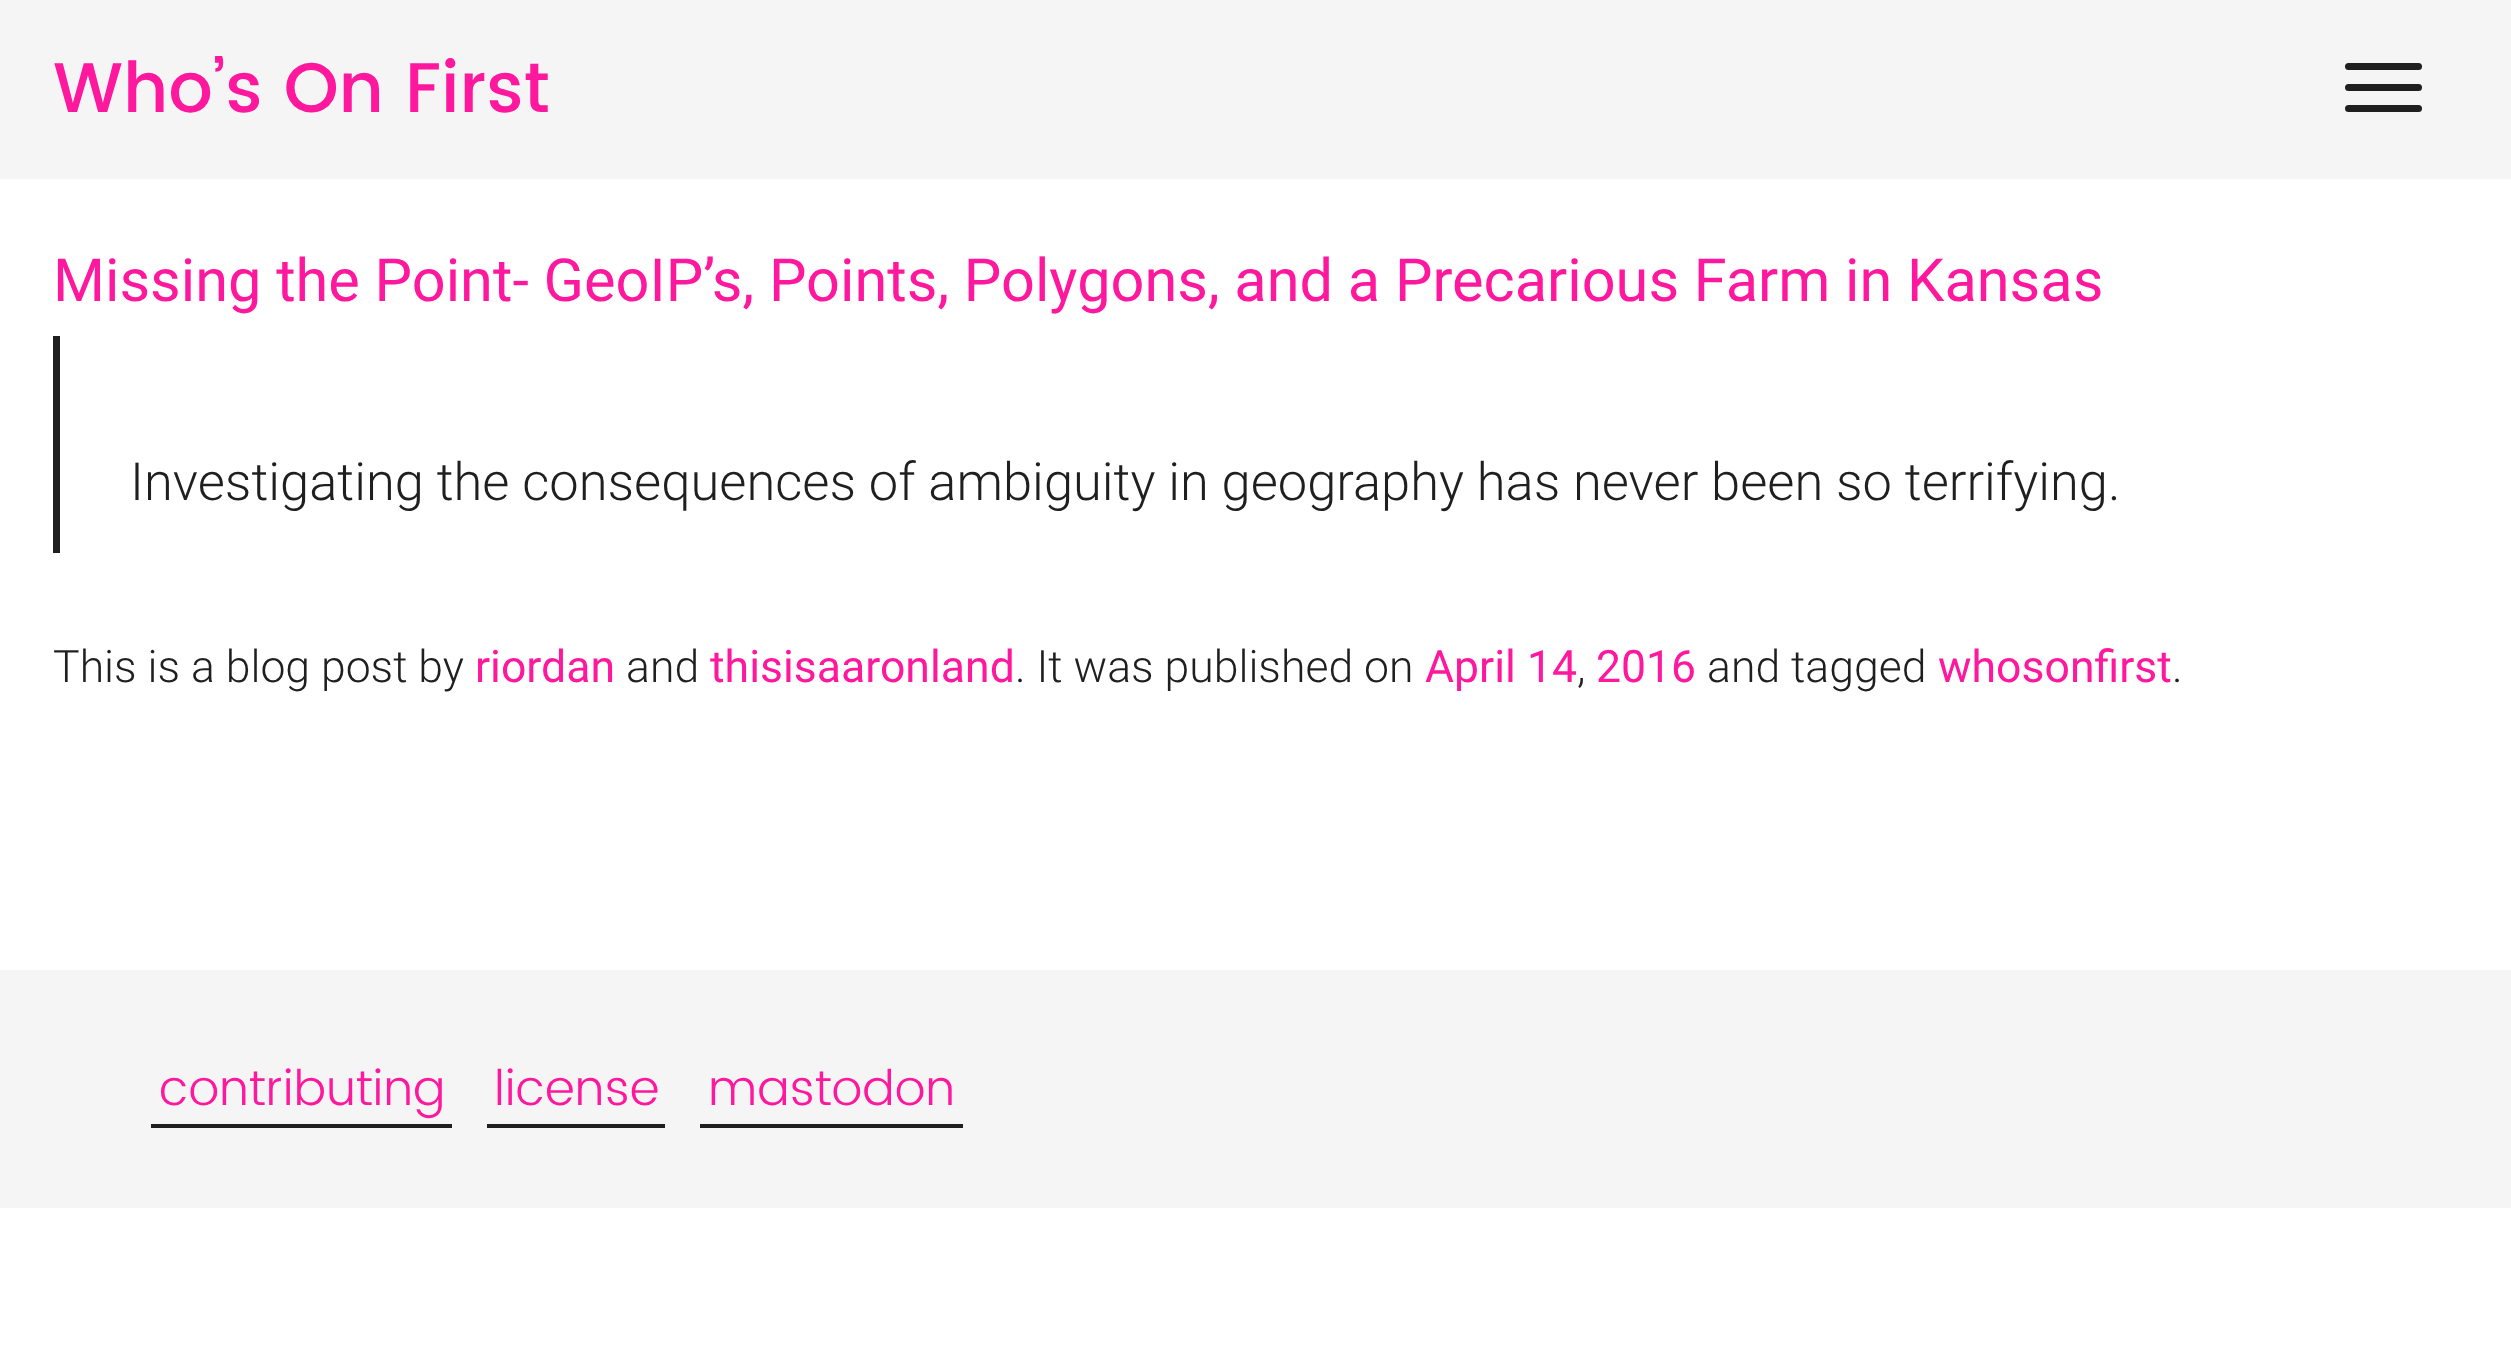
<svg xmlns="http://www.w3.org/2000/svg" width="2511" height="1358">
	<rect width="100%" height="100%" fill="#FFFFFF" />
	<rect x="0" y="0" width="2511" height="179" fill="#F5F5F5" />
	<text x="53" y="112" font-family="Poppins" font-size="70" font-weight="500" fill="#FE189D">Who’s On First</text>
	<rect x="2345" y="63" width="77" height="7" rx="3.5" fill="#1F1F1F" />
	<rect x="2345" y="84" width="77" height="7" rx="3.5" fill="#1F1F1F" />
	<rect x="2345" y="105" width="77" height="7" rx="3.5" fill="#1F1F1F" />
	<text x="53" y="301" font-family="Roboto" font-size="59.5" fill="#FE189D">Missing the Point- GeoIP’s, Points, Polygons, and a Precarious Farm in Kansas</text>
	<rect x="53" y="336" width="7" height="217" fill="#1F1F1F" />
	<text x="130" y="500" font-family="Roboto" font-size="52.5" font-weight="300" fill="#1F1F1F">Investigating the consequences of ambiguity in geography has never been so terrifying.</text>
	<text x="53" y="682" font-family="Roboto" font-size="44.6" font-weight="300" fill="#1F1F1F">This is a blog post by</text>
	<text x="475" y="682" font-family="Roboto" font-size="44.6" fill="#FE189D">riordan</text>
	<text x="626" y="682" font-family="Roboto" font-size="44.6" font-weight="300" fill="#1F1F1F">and</text>
	<text x="710" y="682" font-family="Roboto" font-size="44.6" fill="#FE189D">thisisaaronland</text>
	<text x="1015" y="682" font-family="Roboto" font-size="44.6" font-weight="300" fill="#1F1F1F">. It was published on</text>
	<text x="1425" y="682" font-family="Roboto" font-size="44.6" fill="#FE189D">April 14</text>
	<text x="1577" y="682" font-family="Roboto" font-size="44.6" font-weight="300" fill="#1F1F1F">,</text>
	<text x="1596" y="682" font-family="Roboto" font-size="44.6" fill="#FE189D">2016</text>
	<text x="1707" y="682" font-family="Roboto" font-size="44.6" font-weight="300" fill="#1F1F1F">and tagged</text>
	<text x="1938" y="682" font-family="Roboto" font-size="44.6" fill="#FE189D">whosonfirst</text>
	<text x="2172" y="682" font-family="Roboto" font-size="44.6" font-weight="300" fill="#1F1F1F">.</text>
	<rect x="0" y="970" width="2511" height="238" fill="#F5F5F5" />
	<text x="159" y="1105" font-family="Poppins" font-size="49" font-weight="300" fill="#FE189D">contributing</text>
	<rect x="151" y="1124" width="301" height="4" fill="#1F1F1F" />
	<text x="494" y="1105" font-family="Poppins" font-size="49" font-weight="300" fill="#FE189D">license</text>
	<rect x="487" y="1124" width="178" height="4" fill="#1F1F1F" />
	<text x="708" y="1105" font-family="Poppins" font-size="49" font-weight="300" fill="#FE189D">mastodon</text>
	<rect x="700" y="1124" width="263" height="4" fill="#1F1F1F" />
</svg>
